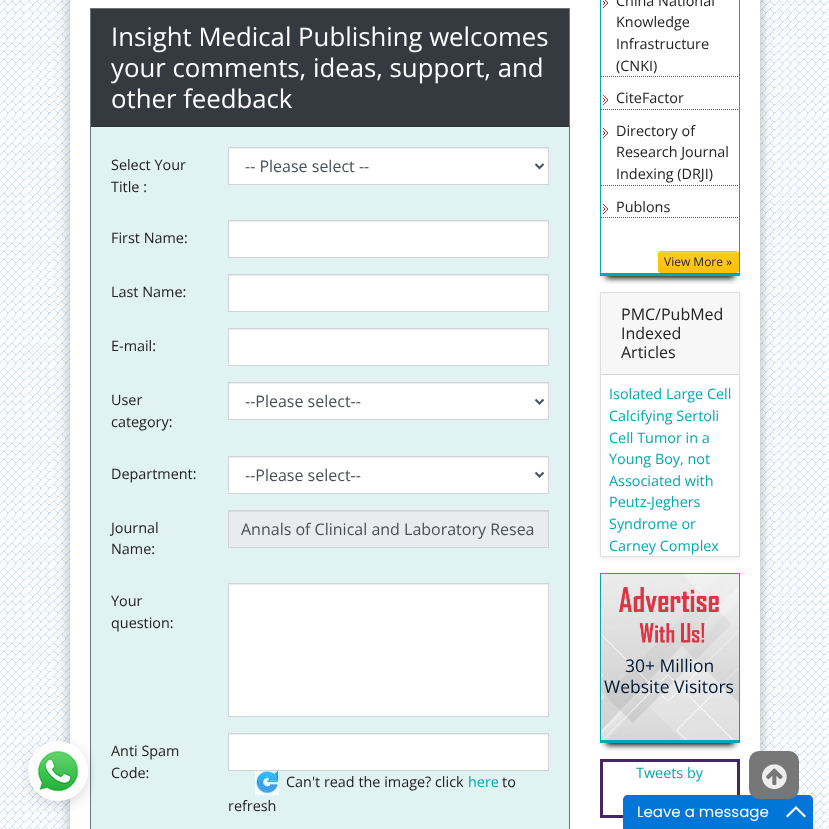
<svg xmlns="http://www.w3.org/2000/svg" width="829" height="829">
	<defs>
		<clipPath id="clip1"><rect x="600" y="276" width="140" height="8" /></clipPath>
		<clipPath id="clip2"><rect x="658" y="251" width="81" height="22" rx="3" /></clipPath>
		<linearGradient id="g1" gradientUnits="userSpaceOnUse" x1="699" y1="252" x2="699" y2="272"><stop offset="0" stop-color="#FFCA2C" /><stop offset="1" stop-color="#FFC107" /></linearGradient>
		<clipPath id="clip3"><path d="M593 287H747V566H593ZM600 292H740V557H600Z" clip-rule="evenodd" /></clipPath>
	</defs>
	<rect width="100%" height="100%" fill="#FFFFFF" />
	<image x="0" y="0" width="829" height="829" href="assets/img1.png" />
	<rect x="68" y="-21" width="694" height="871" fill="#000000" fill-opacity="0.12" filter="blur(7px)" />
	<rect x="69" y="-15" width="692" height="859" fill="#000000" fill-opacity="0.14" filter="blur(5px)" />
	<rect x="70" y="0" width="690" height="829" fill="#FFFFFF" />
	<rect x="90.5" y="8.5" width="479" height="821" fill="none" stroke="#6C757D" />
	<rect x="91" y="127" width="478" height="702" fill="#E0F2F1" />
	<image x="21" y="738" width="74" height="73" href="assets/img2.png" />
	<rect x="91" y="9" width="478" height="117" fill="#343A40" />
	<rect x="91" y="126" width="478" height="1" fill="#2E3338" />
	<g font-family="Open Sans" font-size="25.75" fill="#FFFFFF">
		<text x="111" y="46">Insight Medical Publishing welcomes</text>
		<text x="111" y="77">your comments, ideas, support, and</text>
		<text x="111" y="108">other feedback</text>
	</g>
	<g font-family="Open Sans" font-size="14.4" fill="#212121">
		<text x="111" y="170">Select Your</text>
		<text x="111" y="192">Title :</text>
	</g>
	<rect x="229" y="149" width="319" height="35" fill="#FFFFFF" />
	<rect x="229" y="148" width="319" height="1" fill="#ECECEC" />
	<rect x="228.5" y="147.5" width="320" height="37" fill="none" stroke="#CED4DA" />
	<path d="M535.5 164L539.5 168L543.5 164" fill="none" stroke="#495057" stroke-width="2" />
	<text x="245" y="172" font-family="Open Sans" font-size="16" fill="#495057">-- Please select --</text>
	<text x="111" y="243" font-family="Open Sans" font-size="14.4" fill="#212121">First Name:</text>
	<rect x="229" y="222" width="319" height="35" fill="#FFFFFF" />
	<rect x="229" y="221" width="319" height="1" fill="#ECECEC" />
	<rect x="228.5" y="220.5" width="320" height="37" fill="none" stroke="#CED4DA" />
	<text x="111" y="297" font-family="Open Sans" font-size="14.4" fill="#212121">Last Name:</text>
	<rect x="229" y="276" width="319" height="35" fill="#FFFFFF" />
	<rect x="229" y="275" width="319" height="1" fill="#ECECEC" />
	<rect x="228.5" y="274.5" width="320" height="37" fill="none" stroke="#CED4DA" />
	<text x="111" y="351" font-family="Open Sans" font-size="14.4" fill="#212121">E-mail:</text>
	<rect x="229" y="330" width="319" height="35" fill="#FFFFFF" />
	<rect x="229" y="329" width="319" height="1" fill="#ECECEC" />
	<rect x="228.5" y="328.5" width="320" height="37" fill="none" stroke="#CED4DA" />
	<g font-family="Open Sans" font-size="14.4" fill="#212121">
		<text x="111" y="405">User</text>
		<text x="111" y="427">category:</text>
	</g>
	<rect x="229" y="384" width="319" height="35" fill="#FFFFFF" />
	<rect x="229" y="383" width="319" height="1" fill="#ECECEC" />
	<rect x="228.5" y="382.5" width="320" height="37" fill="none" stroke="#CED4DA" />
	<path d="M535.5 399.5L539.5 403.5L543.5 399.5" fill="none" stroke="#495057" stroke-width="2" />
	<text x="245" y="407" font-family="Open Sans" font-size="16" fill="#495057">--Please select--</text>
	<text x="111" y="479" font-family="Open Sans" font-size="14.4" fill="#212121">Department:</text>
	<rect x="229" y="458" width="319" height="35" fill="#FFFFFF" />
	<rect x="229" y="457" width="319" height="1" fill="#ECECEC" />
	<rect x="228.5" y="456.5" width="320" height="37" fill="none" stroke="#CED4DA" />
	<path d="M535.5 472.5L539.5 476.5L543.5 472.5" fill="none" stroke="#495057" stroke-width="2" />
	<text x="245" y="481" font-family="Open Sans" font-size="16" fill="#495057">--Please select--</text>
	<g font-family="Open Sans" font-size="14.4" fill="#212121">
		<text x="111" y="533">Journal</text>
		<text x="111" y="554">Name:</text>
	</g>
	<rect x="229" y="512" width="319" height="35" fill="#E9ECEF" />
	<rect x="229" y="511" width="319" height="1" fill="#D8DADD" />
	<rect x="228.5" y="510.5" width="320" height="37" fill="none" stroke="#CED4DA" />
	<text x="241" y="535" font-family="Open Sans" font-size="16" fill="#495057">Annals of Clinical and Laboratory Resea</text>
	<g font-family="Open Sans" font-size="14.4" fill="#212121">
		<text x="111" y="606">Your</text>
		<text x="111" y="628">question:</text>
	</g>
	<rect x="229" y="585" width="319" height="131" fill="#FFFFFF" />
	<rect x="229" y="584" width="319" height="1" fill="#ECECEC" />
	<rect x="228.5" y="583.5" width="320" height="133" fill="none" stroke="#CED4DA" />
	<g font-family="Open Sans" font-size="14.4" fill="#212121">
		<text x="111" y="756">Anti Spam</text>
		<text x="111" y="778">Code:</text>
	</g>
	<rect x="229" y="735" width="319" height="35" fill="#FFFFFF" />
	<rect x="229" y="734" width="319" height="1" fill="#ECECEC" />
	<rect x="228.5" y="733.5" width="320" height="37" fill="none" stroke="#CED4DA" />
	<image x="255" y="771" width="24" height="24" href="assets/img3.png" />
	<text x="286" y="787" font-family="Open Sans" font-size="14.4" fill="#212121">Can't read the image? click</text>
	<text x="468" y="787" font-family="Open Sans" font-size="14.4" fill="#04A8B2">here</text>
	<g font-family="Open Sans" font-size="14.4" fill="#212121">
		<text x="502" y="787">to</text>
		<text x="228" y="811">refresh</text>
	</g>
	<g clip-path="url(#clip1)">
		<rect x="606" y="-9" width="128" height="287" fill="#000000" filter="blur(3px)" />
	</g>
	<rect x="739" y="0" width="1" height="276" fill="#04A8B2" />
	<rect x="600" y="273" width="140" height="3" fill="#04A8B2" />
	<rect x="600" y="0" width="1" height="276" fill="#04A8B2" />
	<image x="603" y="0" width="5" height="8" href="assets/img4.png" />
	<path d="M601 76.5H739" fill="none" stroke="#5E4F70" stroke-dasharray="1 1" />
	<g font-family="Open Sans" font-size="14.4" fill="#212121">
		<text x="616" y="6">China National</text>
		<text x="616" y="27">Knowledge</text>
		<text x="616" y="49">Infrastructure</text>
		<text x="616" y="71">(CNKI)</text>
	</g>
	<image x="603" y="95" width="5" height="10" href="assets/img5.png" />
	<path d="M601 109.5H739" fill="none" stroke="#5E4F70" stroke-dasharray="1 1" />
	<text x="616" y="103" font-family="Open Sans" font-size="14.4" fill="#212121">CiteFactor</text>
	<image x="603" y="128" width="5" height="10" href="assets/img5.png" />
	<path d="M601 185.5H739" fill="none" stroke="#5E4F70" stroke-dasharray="1 1" />
	<g font-family="Open Sans" font-size="14.4" fill="#212121">
		<text x="616" y="136">Directory of</text>
		<text x="616" y="157">Research Journal</text>
		<text x="616" y="179">Indexing (DRJI)</text>
	</g>
	<image x="603" y="204" width="5" height="10" href="assets/img5.png" />
	<path d="M601 217.5H739" fill="none" stroke="#5E4F70" stroke-dasharray="1 1" />
	<text x="616" y="212" font-family="Open Sans" font-size="14.4" fill="#212121">Publons</text>
	<rect x="658" y="252" width="81" height="22" rx="3" fill="#000000" fill-opacity="0.07" filter="blur(0.5px)" />
	<g clip-path="url(#clip2)">
		<rect x="658" y="252" width="81" height="20" fill="url(#g1)" />
	</g>
	<path d="M661 253H736C737 253 738 254 738 255C738 249 727 252 724 252H674C670 252 659 249 659 255C659 254 660 253 661 253Z" fill="#FFFFFF" fill-opacity="0.15" />
	<rect x="658.5" y="251.5" width="80" height="21" rx="2.5" fill="none" stroke="#FFC107" />
	<text x="664" y="266" font-family="Open Sans" font-size="12" fill="#212529">View More »</text>
	<g clip-path="url(#clip3)">
		<rect x="600" y="294" width="140" height="265" fill="#000000" fill-opacity="0.07" filter="blur(2px)" />
	</g>
	<rect x="600.5" y="292.5" width="139" height="264" fill="none" stroke="#DFDFDF" />
	<rect x="601" y="293" width="138" height="81" fill="#F7F7F7" />
	<rect x="601" y="374" width="138" height="1" fill="#D8D8D8" />
	<g font-family="Open Sans" font-size="16" fill="#212121">
		<text x="621" y="320">PMC/PubMed</text>
		<text x="621" y="339">Indexed</text>
		<text x="621" y="358">Articles</text>
	</g>
	<g font-family="Open Sans" font-size="14.4" fill="#04A8B2">
		<text x="609" y="399">Isolated Large Cell</text>
		<text x="609" y="421">Calcifying Sertoli</text>
		<text x="609" y="443">Cell Tumor in a</text>
		<text x="609" y="464">Young Boy, not</text>
		<text x="609" y="486">Associated with</text>
		<text x="609" y="507">Peutz-Jeghers</text>
		<text x="609" y="529">Syndrome or</text>
		<text x="609" y="551">Carney Complex</text>
	</g>
	<rect x="606" y="587" width="128" height="158" fill="#000000" filter="blur(3px)" />
	<rect x="600" y="573" width="140" height="1" fill="#04A8B2" />
	<rect x="739" y="573" width="1" height="170" fill="#04A8B2" />
	<rect x="600" y="740" width="140" height="3" fill="#04A8B2" />
	<rect x="600" y="573" width="1" height="170" fill="#04A8B2" />
	<image x="601" y="574" width="138" height="166" href="assets/img6.png" />
	<g font-family="Open Sans" font-size="17.5" fill="#001834">
		<text x="625" y="672">30+ Million</text>
		<text x="604" y="693">Website Visitors</text>
	</g>
	<rect x="601.5" y="760.5" width="137" height="56" fill="none" stroke="#432666" stroke-width="3" />
	<text x="636" y="778" font-family="Open Sans" font-size="14.4" fill="#04A8B2">Tweets by</text>
	<path d="M628 795H808C811 795 813 797 813 800V829H623V800C623 797 625 795 628 795Z" fill="#0275D8" />
	<rect x="749" y="751" width="50" height="48" rx="10" fill="#777777" />
	<image x="762" y="764" width="25" height="26" href="assets/img7.png" />
	<text x="637" y="817" font-family="Poppins" font-size="15" fill="#FFFFFF">Leave a message</text>
	<path d="M796 806L806 816L804.5 817.5L796 809L787.5 817.5L786 816Z" fill="#FFFFFF" />
</svg>
